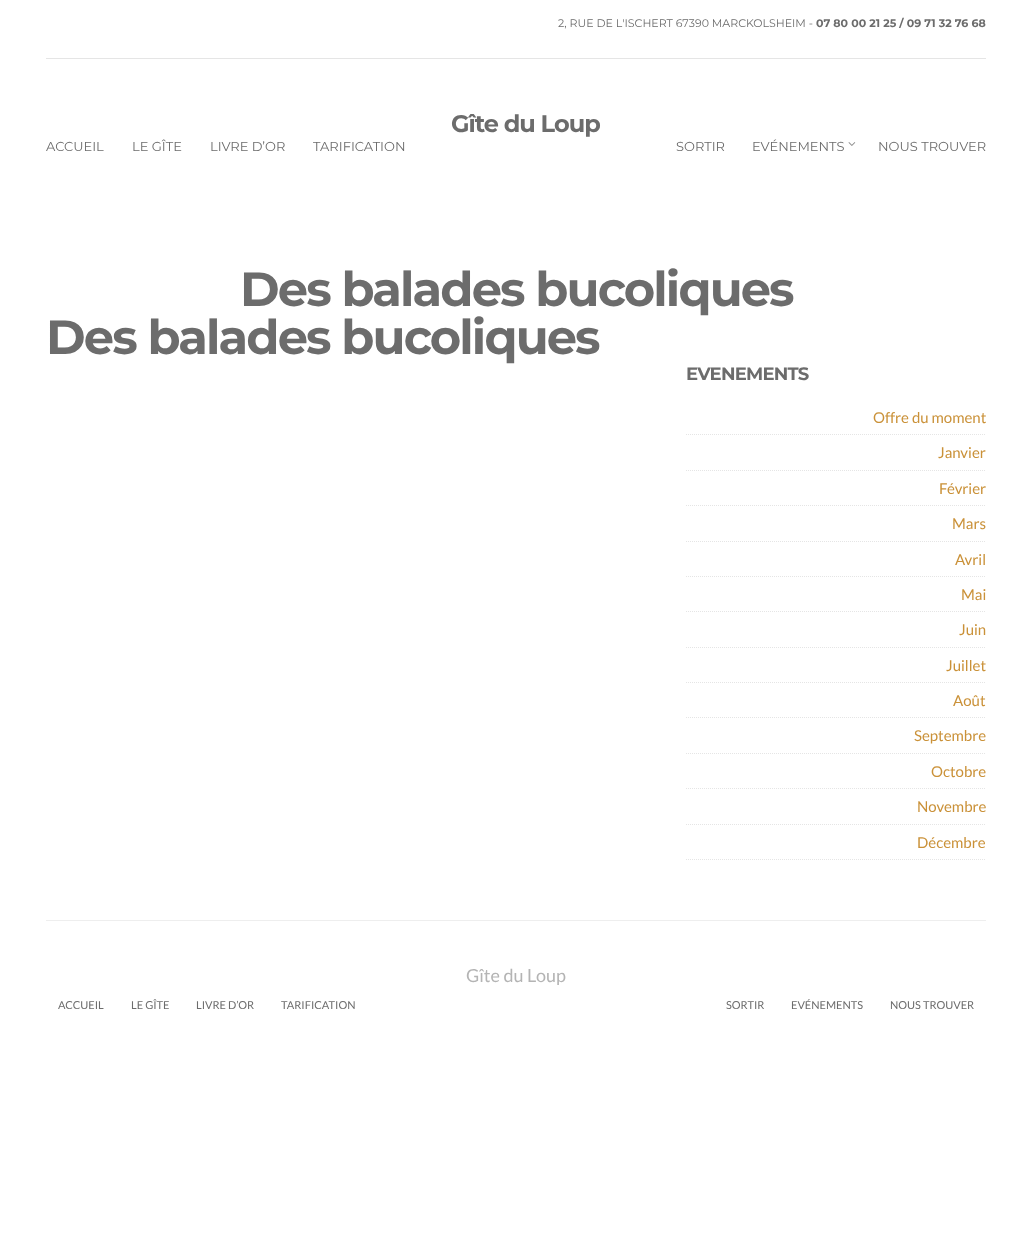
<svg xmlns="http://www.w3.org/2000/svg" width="1032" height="1233">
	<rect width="100%" height="100%" fill="#FFFFFF" />
	<text x="558" y="27" font-family="Montserrat" font-size="11" fill="#6C6C6C">2, RUE DE L'ISCHERT 67390 MARCKOLSHEIM -</text>
	<text x="816" y="27" font-family="Montserrat" font-size="11" font-weight="700" fill="#6C6C6C">07 80 00 21 25 / 09 71 32 76 68</text>
	<rect x="46" y="58" width="940" height="1" fill="#E5E5E5" />
	<text x="451" y="132" font-family="Montserrat" font-size="24" font-weight="700" letter-spacing="-1" fill="#6C6C6C">Gîte du Loup</text>
	<g font-family="Montserrat" font-size="13" fill="#6C6C6C">
		<text x="46" y="151">ACCUEIL</text>
		<text x="132" y="151">LE GÎTE</text>
		<text x="210" y="151">LIVRE D’OR</text>
		<text x="313" y="151">TARIFICATION</text>
		<text x="676" y="151">SORTIR</text>
		<text x="752" y="151">EVÉNEMENTS</text>
	</g>
	<image x="848" y="142" width="8" height="4" href="assets/img1.png" />
	<text x="878" y="151" font-family="Montserrat" font-size="13" fill="#6C6C6C">NOUS TROUVER</text>
	<g font-family="Montserrat" font-size="48" font-weight="700" letter-spacing="-1.9" fill="#6C6C6C">
		<text x="240" y="306">Des balades bucoliques</text>
		<text x="46" y="354">Des balades bucoliques</text>
	</g>
	<text x="686" y="380" font-family="Montserrat" font-size="18" font-weight="700" letter-spacing="-0.75" fill="#6C6C6C">EVENEMENTS</text>
	<path d="M686 434.5H986" fill="none" stroke="#E5E5E5" stroke-dasharray="1 1" />
	<text x="873" y="423" font-family="Lato" font-size="15" fill="#CA9138">Offre du moment</text>
	<path d="M686 470.5H986" fill="none" stroke="#E5E5E5" stroke-dasharray="1 1" />
	<text x="938" y="458" font-family="Lato" font-size="15" fill="#CA9138">Janvier</text>
	<path d="M686 505.5H986" fill="none" stroke="#E5E5E5" stroke-dasharray="1 1" />
	<text x="939" y="494" font-family="Lato" font-size="15" fill="#CA9138">Février</text>
	<path d="M686 541.5H986" fill="none" stroke="#E5E5E5" stroke-dasharray="1 1" />
	<text x="952" y="529" font-family="Lato" font-size="15" fill="#CA9138">Mars</text>
	<path d="M686 576.5H986" fill="none" stroke="#E5E5E5" stroke-dasharray="1 1" />
	<text x="955" y="565" font-family="Lato" font-size="15" fill="#CA9138">Avril</text>
	<path d="M686 611.5H986" fill="none" stroke="#E5E5E5" stroke-dasharray="1 1" />
	<text x="961" y="600" font-family="Lato" font-size="15" fill="#CA9138">Mai</text>
	<path d="M686 647.5H986" fill="none" stroke="#E5E5E5" stroke-dasharray="1 1" />
	<text x="959" y="635" font-family="Lato" font-size="15" fill="#CA9138">Juin</text>
	<path d="M686 682.5H986" fill="none" stroke="#E5E5E5" stroke-dasharray="1 1" />
	<text x="946" y="671" font-family="Lato" font-size="15" fill="#CA9138">Juillet</text>
	<path d="M686 717.5H986" fill="none" stroke="#E5E5E5" stroke-dasharray="1 1" />
	<text x="953" y="706" font-family="Lato" font-size="15" fill="#CA9138">Août</text>
	<path d="M686 753.5H986" fill="none" stroke="#E5E5E5" stroke-dasharray="1 1" />
	<text x="914" y="741" font-family="Lato" font-size="15" fill="#CA9138">Septembre</text>
	<path d="M686 788.5H986" fill="none" stroke="#E5E5E5" stroke-dasharray="1 1" />
	<text x="931" y="777" font-family="Lato" font-size="15" fill="#CA9138">Octobre</text>
	<path d="M686 824.5H986" fill="none" stroke="#E5E5E5" stroke-dasharray="1 1" />
	<text x="917" y="812" font-family="Lato" font-size="15" fill="#CA9138">Novembre</text>
	<path d="M686 859.5H986" fill="none" stroke="#E5E5E5" stroke-dasharray="1 1" />
	<text x="917" y="848" font-family="Lato" font-size="15" fill="#CA9138">Décembre</text>
	<rect x="46" y="920" width="940" height="1" fill="#EEEEEE" />
	<text x="466" y="982" font-family="Lato" font-size="18" fill="#B4B4B4">Gîte du Loup</text>
	<g font-family="Lato" font-size="11" fill="#6C6C6C">
		<text x="58" y="1009">ACCUEIL</text>
		<text x="131" y="1009">LE GÎTE</text>
		<text x="196" y="1009">LIVRE D’OR</text>
		<text x="281" y="1009">TARIFICATION</text>
		<text x="726" y="1009">SORTIR</text>
		<text x="791" y="1009">EVÉNEMENTS</text>
		<text x="890" y="1009">NOUS TROUVER</text>
	</g>
</svg>
